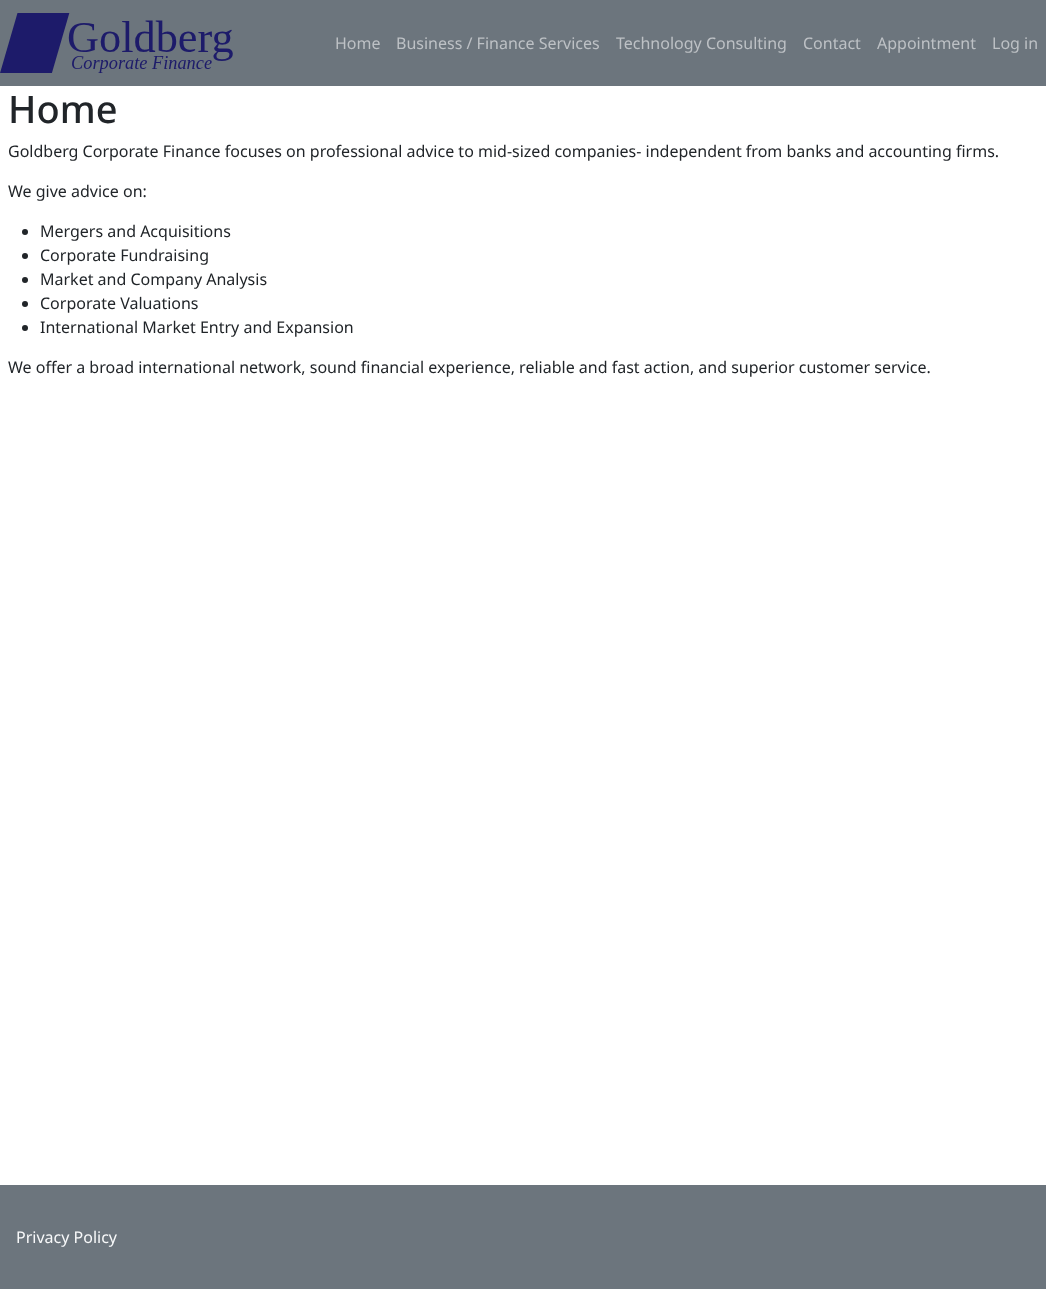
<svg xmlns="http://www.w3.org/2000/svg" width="1046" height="1289">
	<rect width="100%" height="100%" fill="#FFFFFF" />
	<rect x="0" y="0" width="1046" height="86" fill="#6C757D" />
	<image x="0" y="13" width="233" height="60" href="assets/img1.png" />
	<g font-family="Noto Sans" font-size="16" fill="#BDC1C5">
		<text x="335" y="49">Home</text>
		<text x="396" y="49">Business / Finance Services</text>
		<text x="616" y="49">Technology Consulting</text>
		<text x="803" y="49">Contact</text>
		<text x="877" y="49">Appointment</text>
		<text x="992" y="49">Log in</text>
	</g>
	<text x="8" y="123" font-family="Noto Sans" font-size="38" font-weight="500" fill="#212529">Home</text>
	<g font-family="Noto Sans" font-size="16" fill="#212529">
		<text x="8" y="157">Goldberg Corporate Finance focuses on professional advice to mid-sized companies- independent from banks and accounting firms.</text>
		<text x="8" y="197">We give advice on:</text>
	</g>
	<circle cx="25" cy="232" r="3" fill="#212529" />
	<text x="40" y="237" font-family="Noto Sans" font-size="16" fill="#212529">Mergers and Acquisitions</text>
	<circle cx="25" cy="256" r="3" fill="#212529" />
	<text x="40" y="261" font-family="Noto Sans" font-size="16" fill="#212529">Corporate Fundraising</text>
	<circle cx="25" cy="280" r="3" fill="#212529" />
	<text x="40" y="285" font-family="Noto Sans" font-size="16" fill="#212529">Market and Company Analysis</text>
	<circle cx="25" cy="304" r="3" fill="#212529" />
	<text x="40" y="309" font-family="Noto Sans" font-size="16" fill="#212529">Corporate Valuations</text>
	<circle cx="25" cy="328" r="3" fill="#212529" />
	<g font-family="Noto Sans" font-size="16" fill="#212529">
		<text x="40" y="333">International Market Entry and Expansion</text>
		<text x="8" y="373">We offer a broad international network, sound financial experience, reliable and fast action, and superior customer service.</text>
	</g>
	<rect x="0" y="1185" width="1046" height="104" fill="#6C757D" />
	<text x="16" y="1243" font-family="Noto Sans" font-size="16" fill="#F8F9FA">Privacy Policy</text>
</svg>
